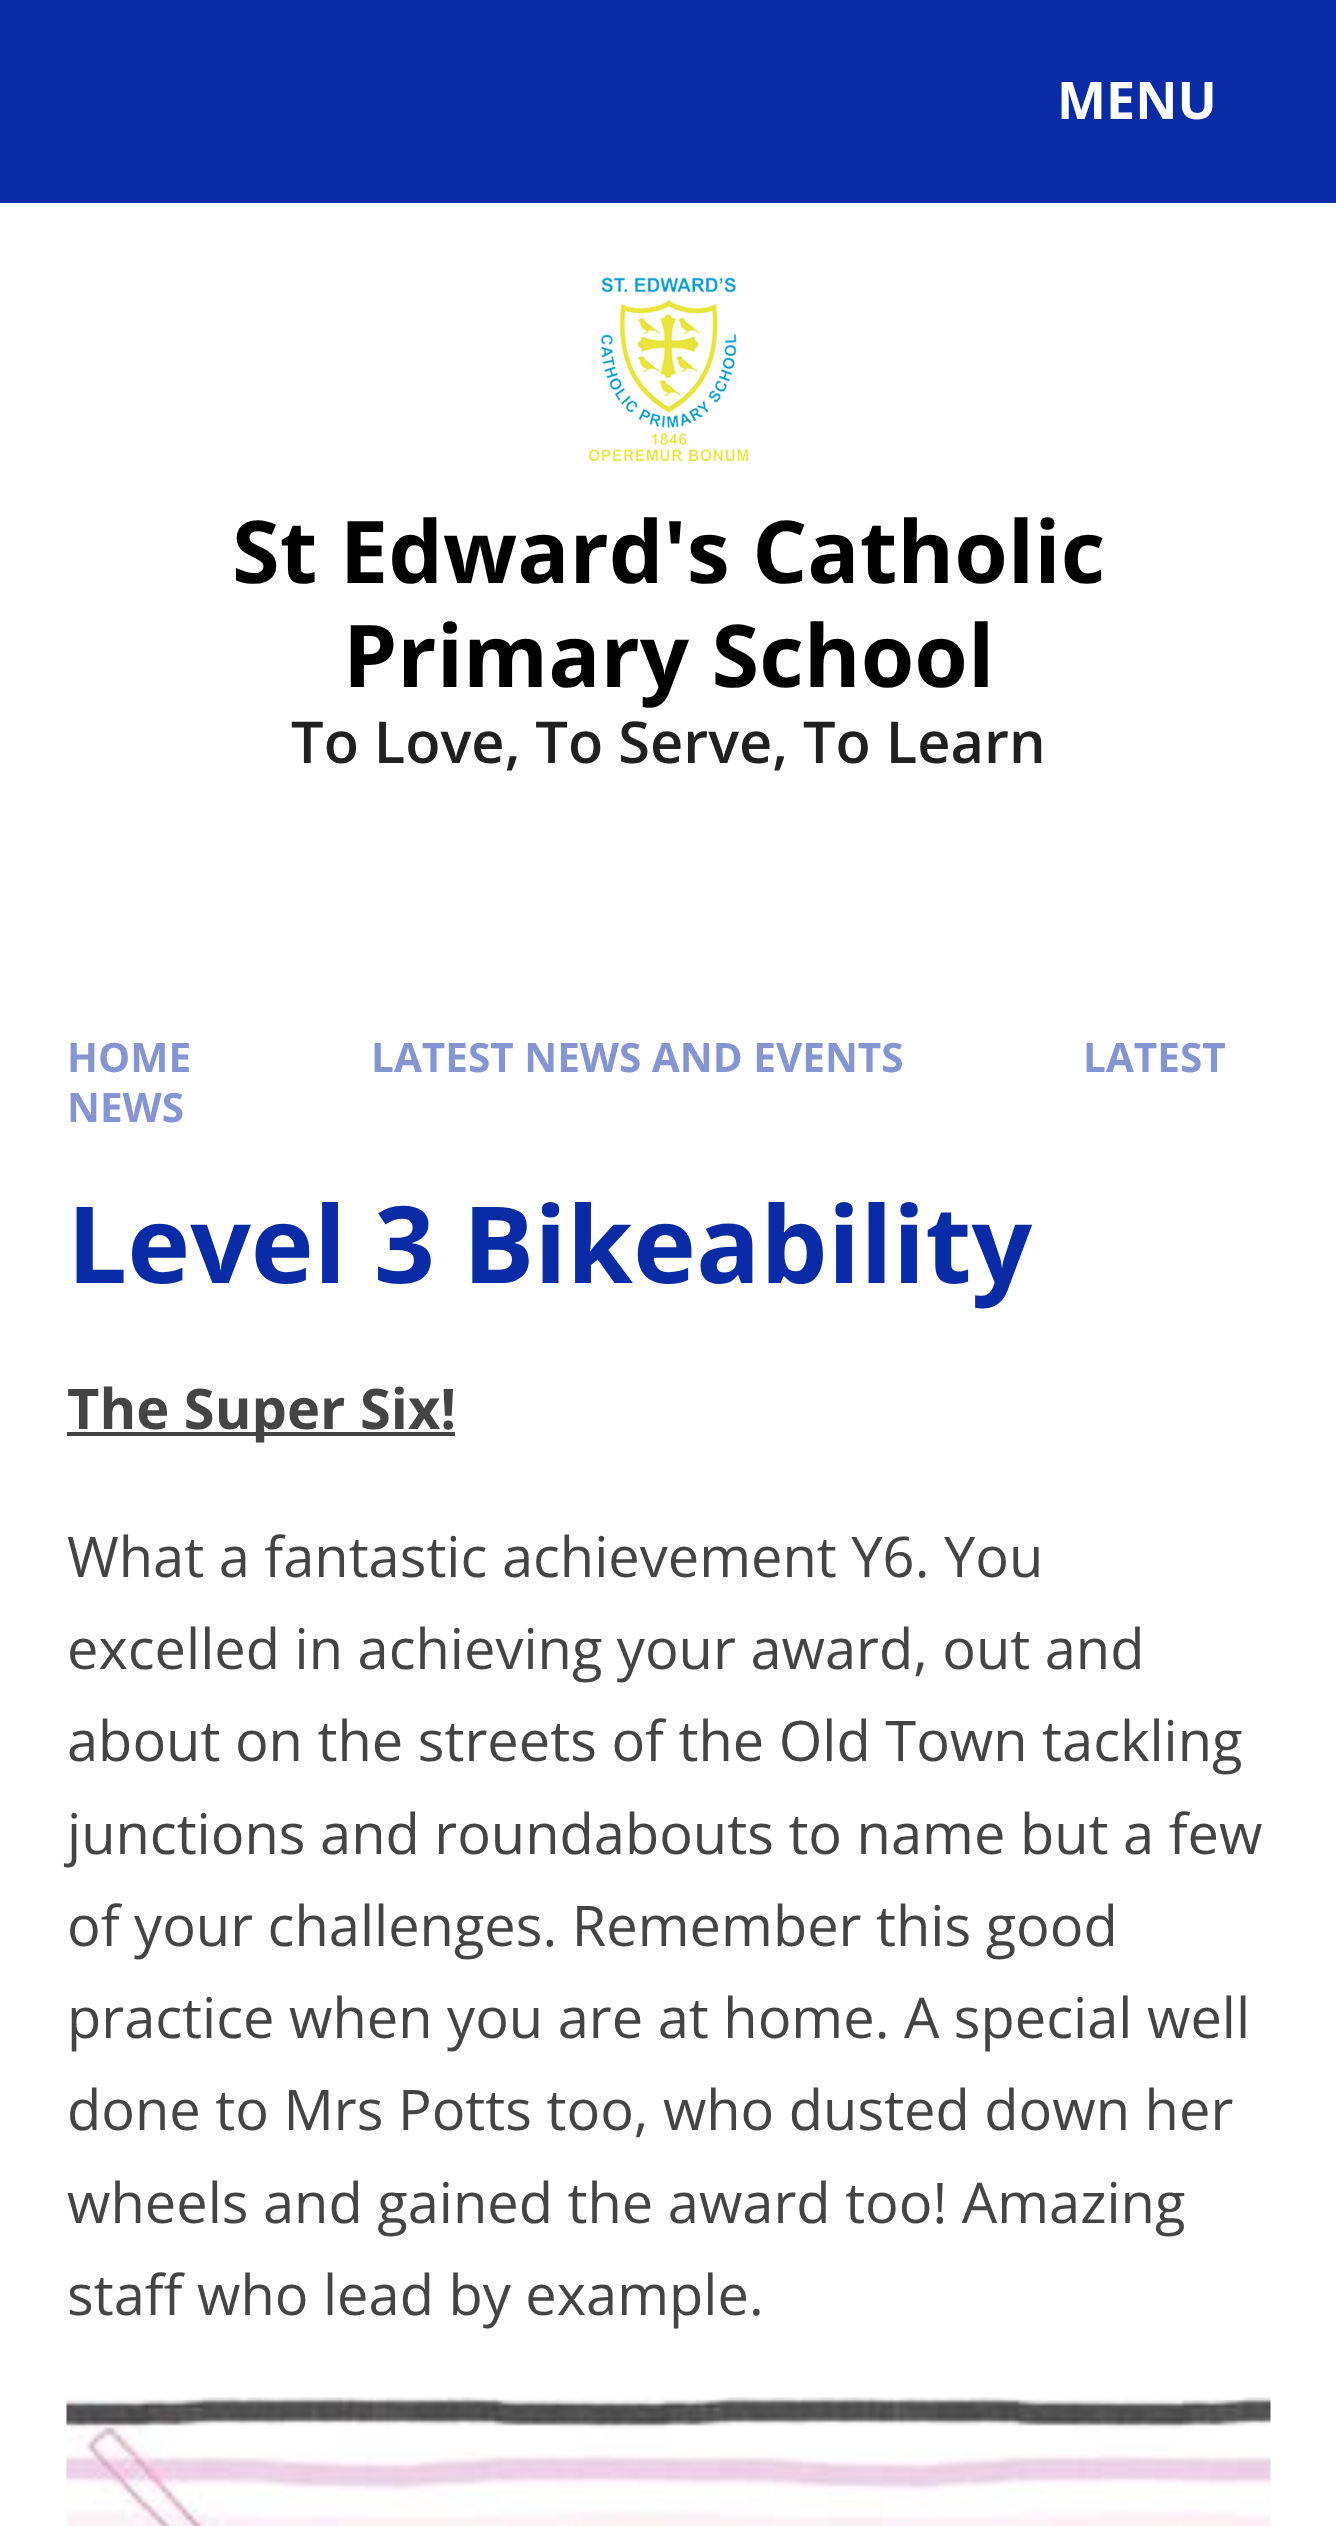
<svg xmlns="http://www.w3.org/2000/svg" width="1336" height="2526">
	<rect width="100%" height="100%" fill="#FFFFFF" />
	<rect x="0" y="0" width="1336" height="203" fill="#0A2BA6" />
	<text x="1057" y="119" font-family="Open Sans" font-size="52" font-weight="700" fill="#FFFFFF">MENU</text>
	<image x="588" y="277" width="161" height="184" href="assets/img1.png" />
	<g font-family="Open Sans" font-size="86.6" font-weight="700" fill="#000000">
		<text x="232" y="583">St Edward's Catholic</text>
		<text x="343" y="687">Primary School</text>
	</g>
	<text x="291" y="763" font-family="Open Sans" font-size="57.75" font-weight="600" fill="#202020">To Love, To Serve, To Learn</text>
	<g font-family="Open Sans" font-size="40.5" font-weight="700" fill="#8595D3">
		<text x="67" y="1072">HOME</text>
		<text x="371" y="1072">LATEST NEWS AND EVENTS</text>
		<text x="1083" y="1072">LATEST</text>
		<text x="67" y="1122">NEWS</text>
	</g>
	<text x="67" y="1283" font-family="Open Sans" font-size="106.6" font-weight="700" fill="#0A2BA6">Level 3 Bikeability</text>
	<rect x="67" y="1432" width="388" height="4" fill="#444444" />
	<text x="67" y="1429" font-family="Open Sans" font-size="56" font-weight="700" fill="#444444">The Super Six!</text>
	<g font-family="Open Sans" font-size="56" fill="#444444">
		<text x="67" y="1577">What a fantastic achievement Y6. You</text>
		<text x="67" y="1669">excelled in achieving your award, out and</text>
		<text x="67" y="1761">about on the streets of the Old Town tackling</text>
		<text x="67" y="1854">junctions and roundabouts to name but a few</text>
		<text x="67" y="1946">of your challenges. Remember this good</text>
		<text x="67" y="2038">practice when you are at home. A special well</text>
		<text x="67" y="2130">done to Mrs Potts too, who dusted down her</text>
		<text x="67" y="2223">wheels and gained the award too! Amazing</text>
		<text x="67" y="2315">staff who lead by example.</text>
	</g>
	<image x="66" y="2397" width="1205" height="129" href="assets/img2.png" />
</svg>
